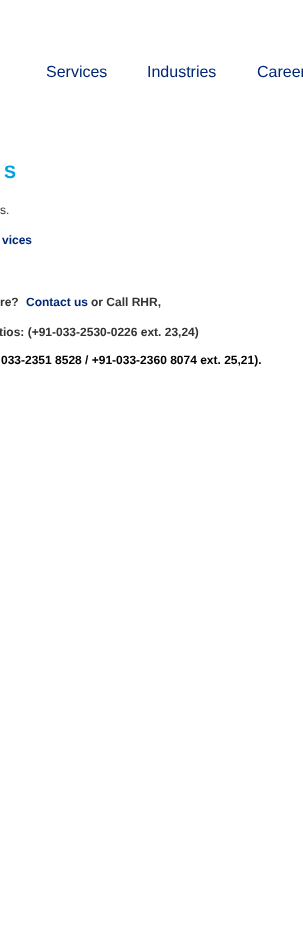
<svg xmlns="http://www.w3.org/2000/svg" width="303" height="947">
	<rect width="100%" height="100%" fill="#FFFFFF" />
	<g font-family="Liberation Sans" font-size="16" fill="#002776">
		<text x="46" y="77">Services</text>
		<text x="147" y="77">Industries</text>
		<text x="257" y="77">Career</text>
	</g>
	<text x="4" y="178" font-family="Liberation Sans" font-size="18" font-weight="700" fill="#00A1DE">S</text>
	<text x="0" y="214" font-family="Liberation Sans" font-size="12" fill="#333333">s.</text>
	<text x="2" y="244" font-family="Liberation Sans" font-size="12" font-weight="700" fill="#002776">vices</text>
	<text x="0" y="306" font-family="Liberation Sans" font-size="12" font-weight="700" fill="#333333">re?</text>
	<text x="26" y="306" font-family="Liberation Sans" font-size="12" font-weight="700" fill="#002776">Contact us</text>
	<g font-family="Liberation Sans" font-size="12" font-weight="700" fill="#333333">
		<text x="91" y="306">or Call RHR,</text>
		<text x="-1" y="336">tios: (+91-033-2530-0226 ext. 23,24)</text>
	</g>
	<text x="1" y="364" font-family="Liberation Sans" font-size="12" font-weight="700" fill="#000000">033-2351 8528 / +91-033-2360 8074 ext. 25,21).</text>
</svg>
